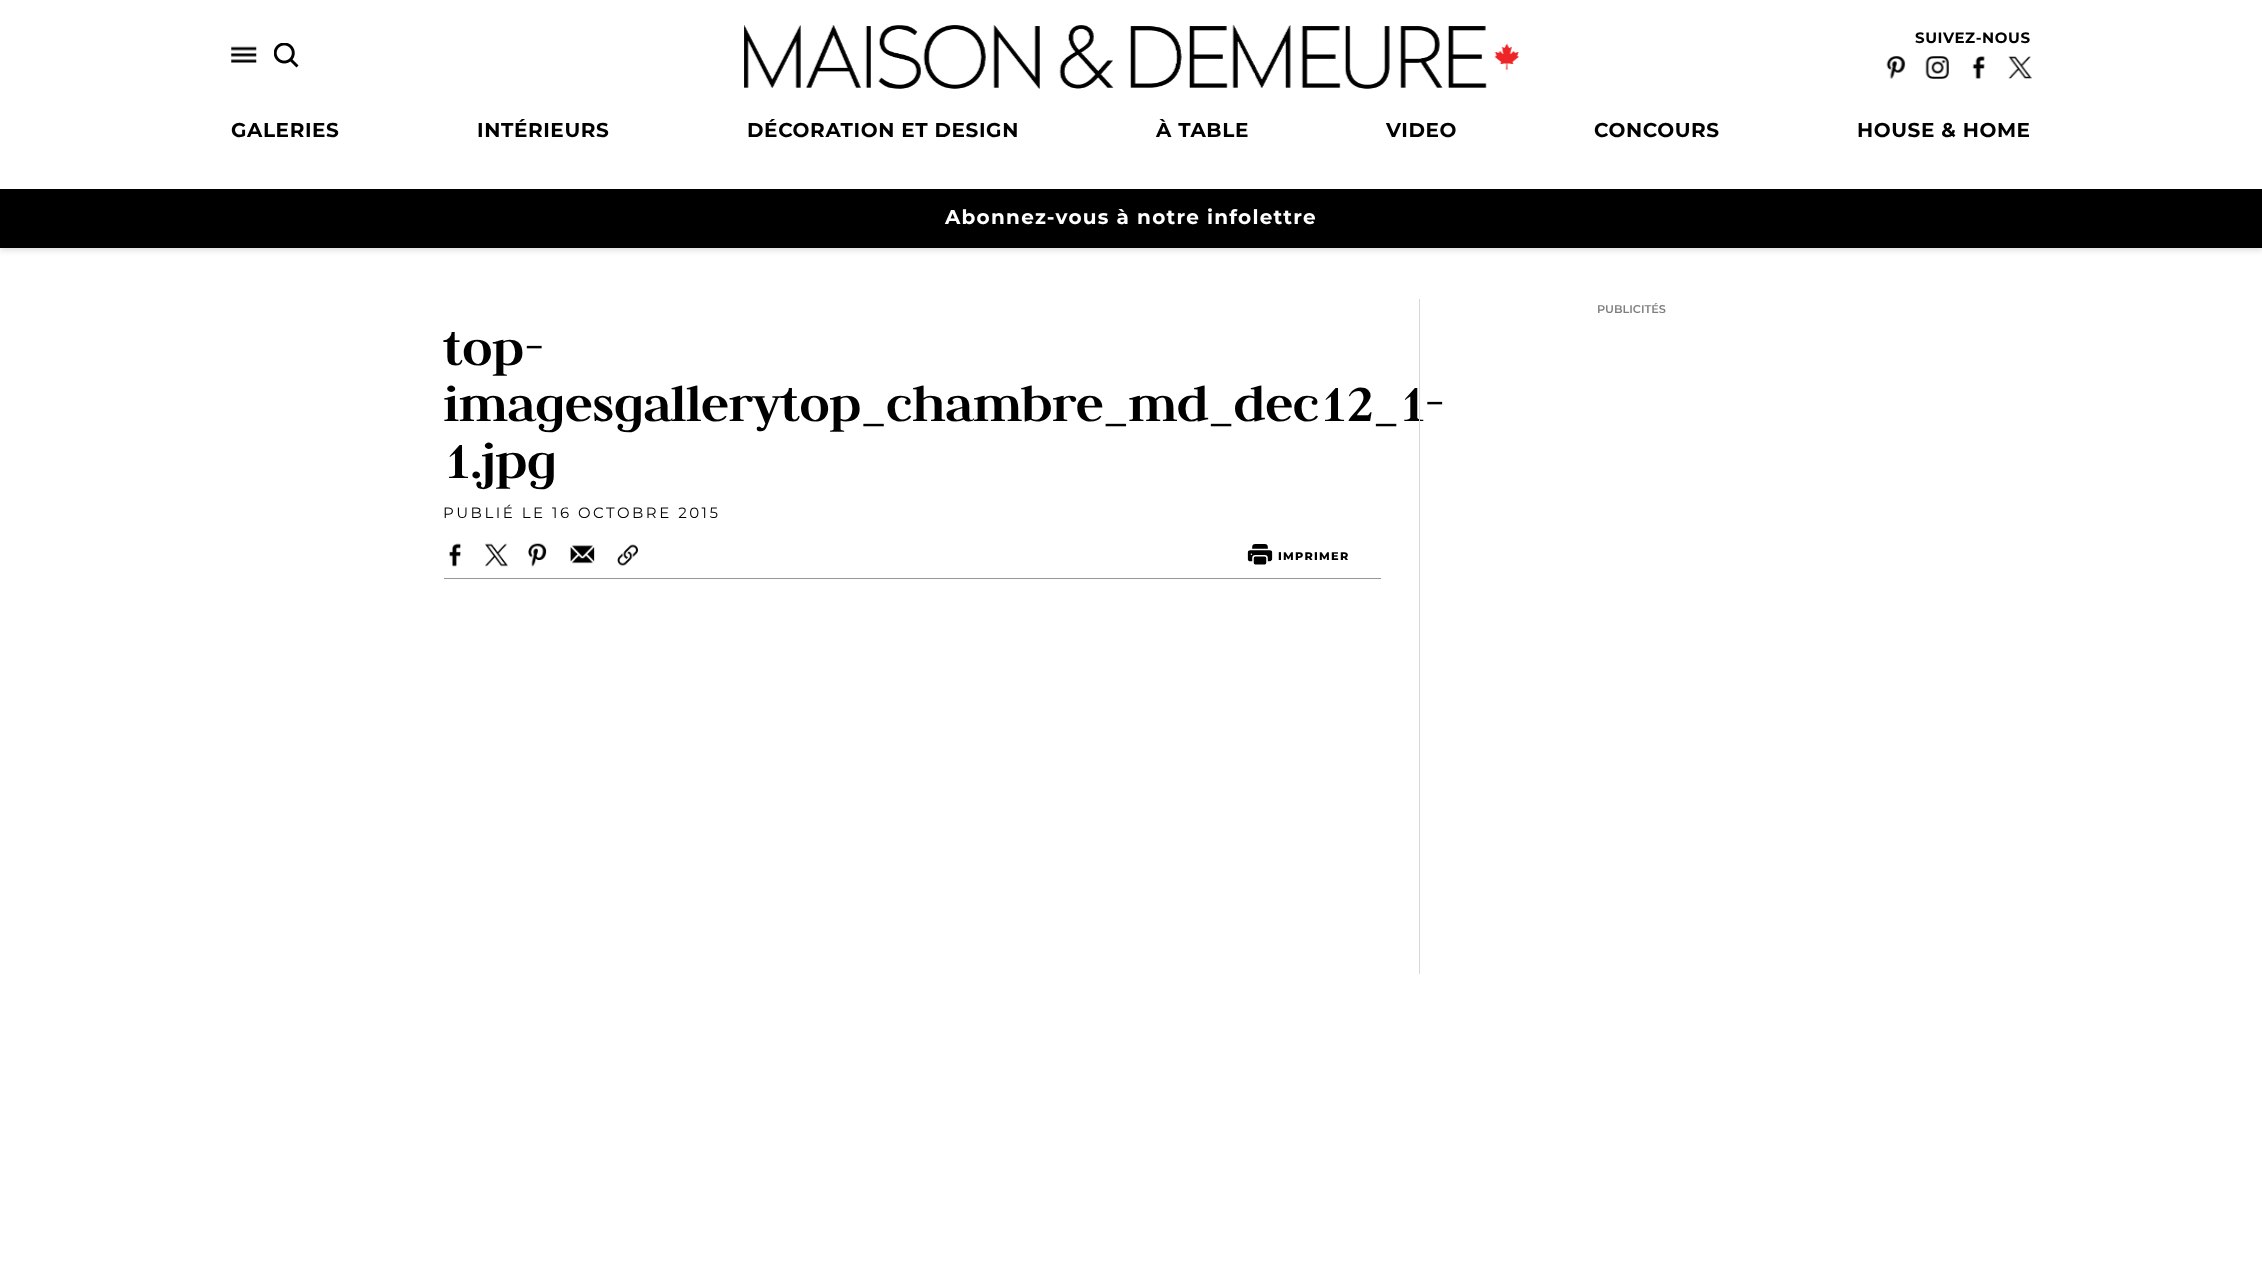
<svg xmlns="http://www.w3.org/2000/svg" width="2262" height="1280">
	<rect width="100%" height="100%" fill="#FFFFFF" />
	<rect x="0" y="3" width="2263" height="247" fill="#000000" fill-opacity="0.15" filter="blur(3px)" />
	<rect x="0" y="0" width="2262" height="189" fill="#FFFFFF" />
	<image x="744" y="25" width="775" height="64" href="assets/img1.png" />
	<text x="1915" y="43" font-family="Montserrat" font-size="15" font-weight="700" letter-spacing="0.6" fill="#000000">SUIVEZ-NOUS</text>
	<image x="1886" y="56" width="20" height="23" href="assets/img2.png" />
	<image x="1925" y="56" width="24" height="23" href="assets/img3.png" />
	<image x="1972" y="56" width="13" height="23" href="assets/img4.png" />
	<image x="2008" y="56" width="24" height="23" href="assets/img5.png" />
	<image x="231" y="46" width="26" height="17" href="assets/img6.png" />
	<image x="274" y="43" width="25" height="25" href="assets/img7.png" />
	<g font-family="Montserrat" font-size="20" font-weight="700" letter-spacing="0.6" fill="#000000">
		<text x="231" y="137">GALERIES</text>
		<text x="477" y="137">INTÉRIEURS</text>
		<text x="747" y="137">DÉCORATION ET DESIGN</text>
		<text x="1156" y="137">À TABLE</text>
		<text x="1386" y="137">VIDEO</text>
		<text x="1594" y="137">CONCOURS</text>
		<text x="1857" y="137">HOUSE &amp; HOME</text>
	</g>
	<rect x="0" y="189" width="2262" height="59" fill="#000000" />
	<text x="945" y="224" font-family="Montserrat" font-size="20" font-weight="700" letter-spacing="1.25" fill="#FFFFFF">Abonnez-vous à notre infolettre</text>
	<text x="443" y="421" font-family="Judson" font-size="56.25" font-weight="700" letter-spacing="-0.65" fill="#000000">imagesgallerytop_chambre_md_dec12_1-</text>
	<rect x="1419" y="299" width="1" height="675" fill="#D8D8D8" />
	<text x="1597" y="313" font-family="Montserrat" font-size="11.25" font-weight="600" fill="#7F7F7F">PUBLICITÉS</text>
	<rect x="444" y="578" width="937" height="1" fill="#979797" />
	<g font-family="Judson" font-size="56.25" font-weight="700" letter-spacing="-0.65" fill="#000000">
		<text x="443" y="365">top-</text>
		<text x="443" y="478">1.jpg</text>
	</g>
	<text x="443" y="518" font-family="Montserrat" font-size="15" letter-spacing="2.5" fill="#000000">PUBLIÉ LE 16 OCTOBRE 2015</text>
	<image x="449" y="543" width="12" height="24" href="assets/img8.png" />
	<image x="485" y="543" width="23" height="24" href="assets/img9.png" />
	<image x="528" y="543" width="19" height="24" href="assets/img10.png" />
	<image x="570" y="545" width="25" height="19" href="assets/img11.png" />
	<image x="617" y="544" width="22" height="22" href="assets/img12.png" />
	<image x="1247" y="544" width="26" height="21" href="assets/img13.png" />
	<text x="1278" y="560" font-family="Montserrat" font-size="11.25" font-weight="800" letter-spacing="1.25" fill="#000000">IMPRIMER</text>
</svg>
